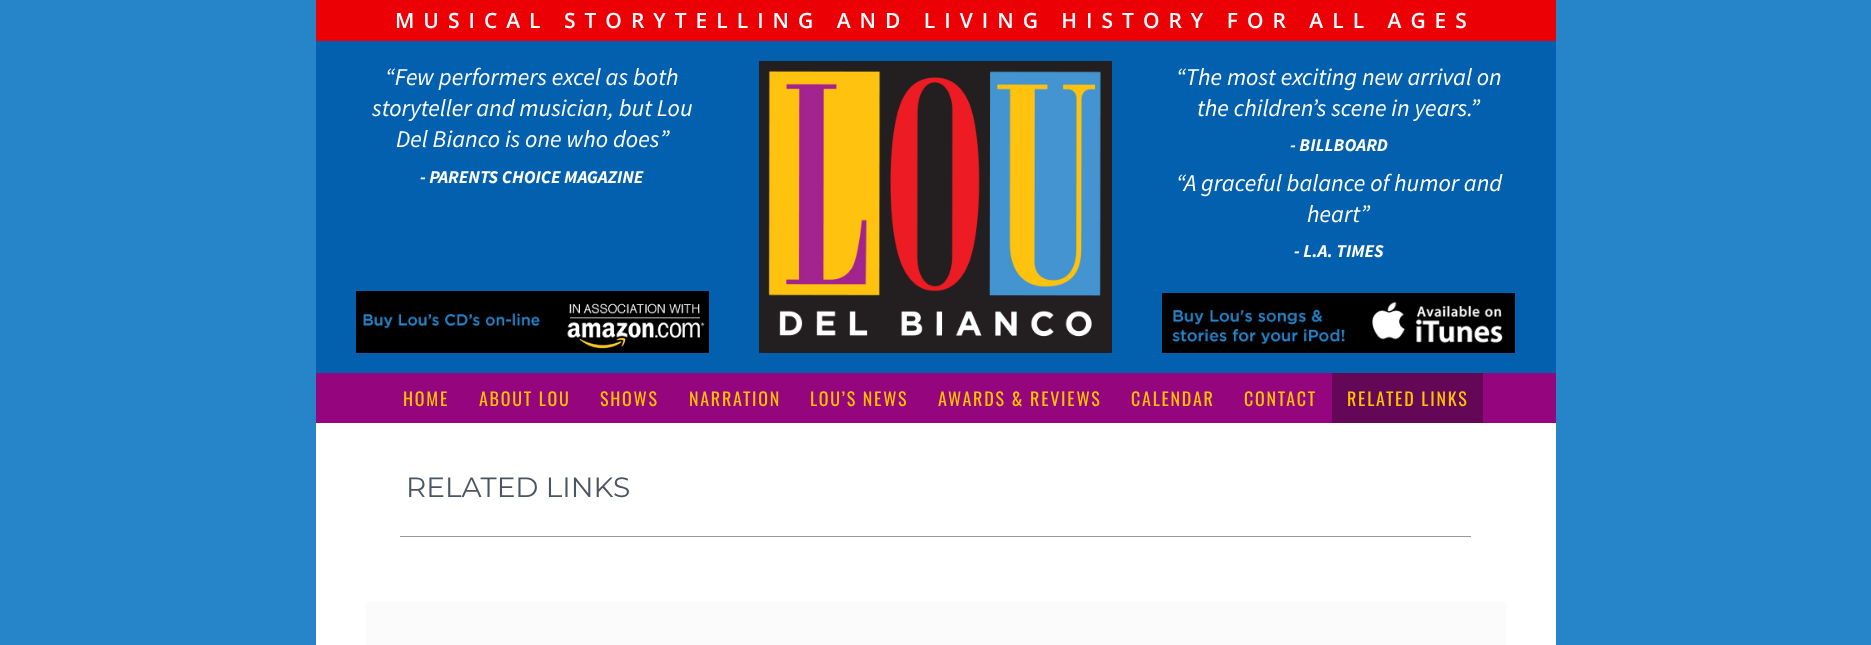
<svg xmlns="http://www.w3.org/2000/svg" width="1871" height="645">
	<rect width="100%" height="100%" fill="#2685C9" />
	<rect x="316" y="0" width="1240" height="41" fill="#EB0005" />
	<text x="395" y="28" font-family="Open Sans" font-size="21" font-weight="600" letter-spacing="9" fill="#FFFFFF">MUSICAL STORYTELLING AND LIVING HISTORY FOR ALL AGES</text>
	<rect x="316" y="41" width="1240" height="332" fill="#0360AF" />
	<g font-family="Source Sans Pro" font-size="24" font-style="italic" fill="#FFFFFF">
		<text x="385" y="85">“Few performers excel as both</text>
		<text x="372" y="116">storyteller and musician, but Lou</text>
		<text x="396" y="147">Del Bianco is one who does”</text>
	</g>
	<text x="420" y="183" font-family="Source Sans Pro" font-size="18" font-weight="700" font-style="italic" fill="#FFFFFF">- PARENTS CHOICE MAGAZINE</text>
	<image x="356" y="291" width="353" height="62" href="assets/img1.png" />
	<image x="759" y="61" width="353" height="292" href="assets/img2.png" />
	<g font-family="Source Sans Pro" font-size="24" font-style="italic" fill="#FFFFFF">
		<text x="1176" y="85">“The most exciting new arrival on</text>
		<text x="1197" y="116">the children’s scene in years.”</text>
	</g>
	<text x="1290" y="151" font-family="Source Sans Pro" font-size="18" font-weight="700" font-style="italic" fill="#FFFFFF">- BILLBOARD</text>
	<g font-family="Source Sans Pro" font-size="24" font-style="italic" fill="#FFFFFF">
		<text x="1176" y="191">“A graceful balance of humor and</text>
		<text x="1307" y="222">heart”</text>
	</g>
	<text x="1294" y="257" font-family="Source Sans Pro" font-size="18" font-weight="700" font-style="italic" fill="#FFFFFF">- L.A. TIMES</text>
	<rect x="1165.5" y="296.5" width="346" height="53" fill="none" stroke="#000000" stroke-width="7" />
	<image x="1169" y="300" width="339" height="46" href="assets/img3.png" />
	<rect x="316" y="373" width="1240" height="50" fill="#94057E" />
	<g font-family="Oswald" font-size="18" letter-spacing="1.75" fill="#FFC000">
		<text x="403" y="406">HOME</text>
		<text x="479" y="406">ABOUT LOU</text>
		<text x="600" y="406">SHOWS</text>
		<text x="689" y="406">NARRATION</text>
		<text x="810" y="406">LOU’S NEWS</text>
		<text x="938" y="406">AWARDS &amp; REVIEWS</text>
		<text x="1131" y="406">CALENDAR</text>
		<text x="1244" y="406">CONTACT</text>
	</g>
	<rect x="1332" y="373" width="151" height="50" fill="#650757" />
	<text x="1347" y="406" font-family="Oswald" font-size="18" letter-spacing="1.75" fill="#FFC000">RELATED LINKS</text>
	<rect x="316" y="423" width="1240" height="222" fill="#FFFFFF" />
	<text x="406" y="497" font-family="Montserrat" font-size="28" fill="#4C5562">RELATED LINKS</text>
	<rect x="400" y="536" width="1071" height="1" fill="#999797" />
	<rect x="366" y="602" width="1140" height="43" fill="#FBFBFB" />
</svg>
